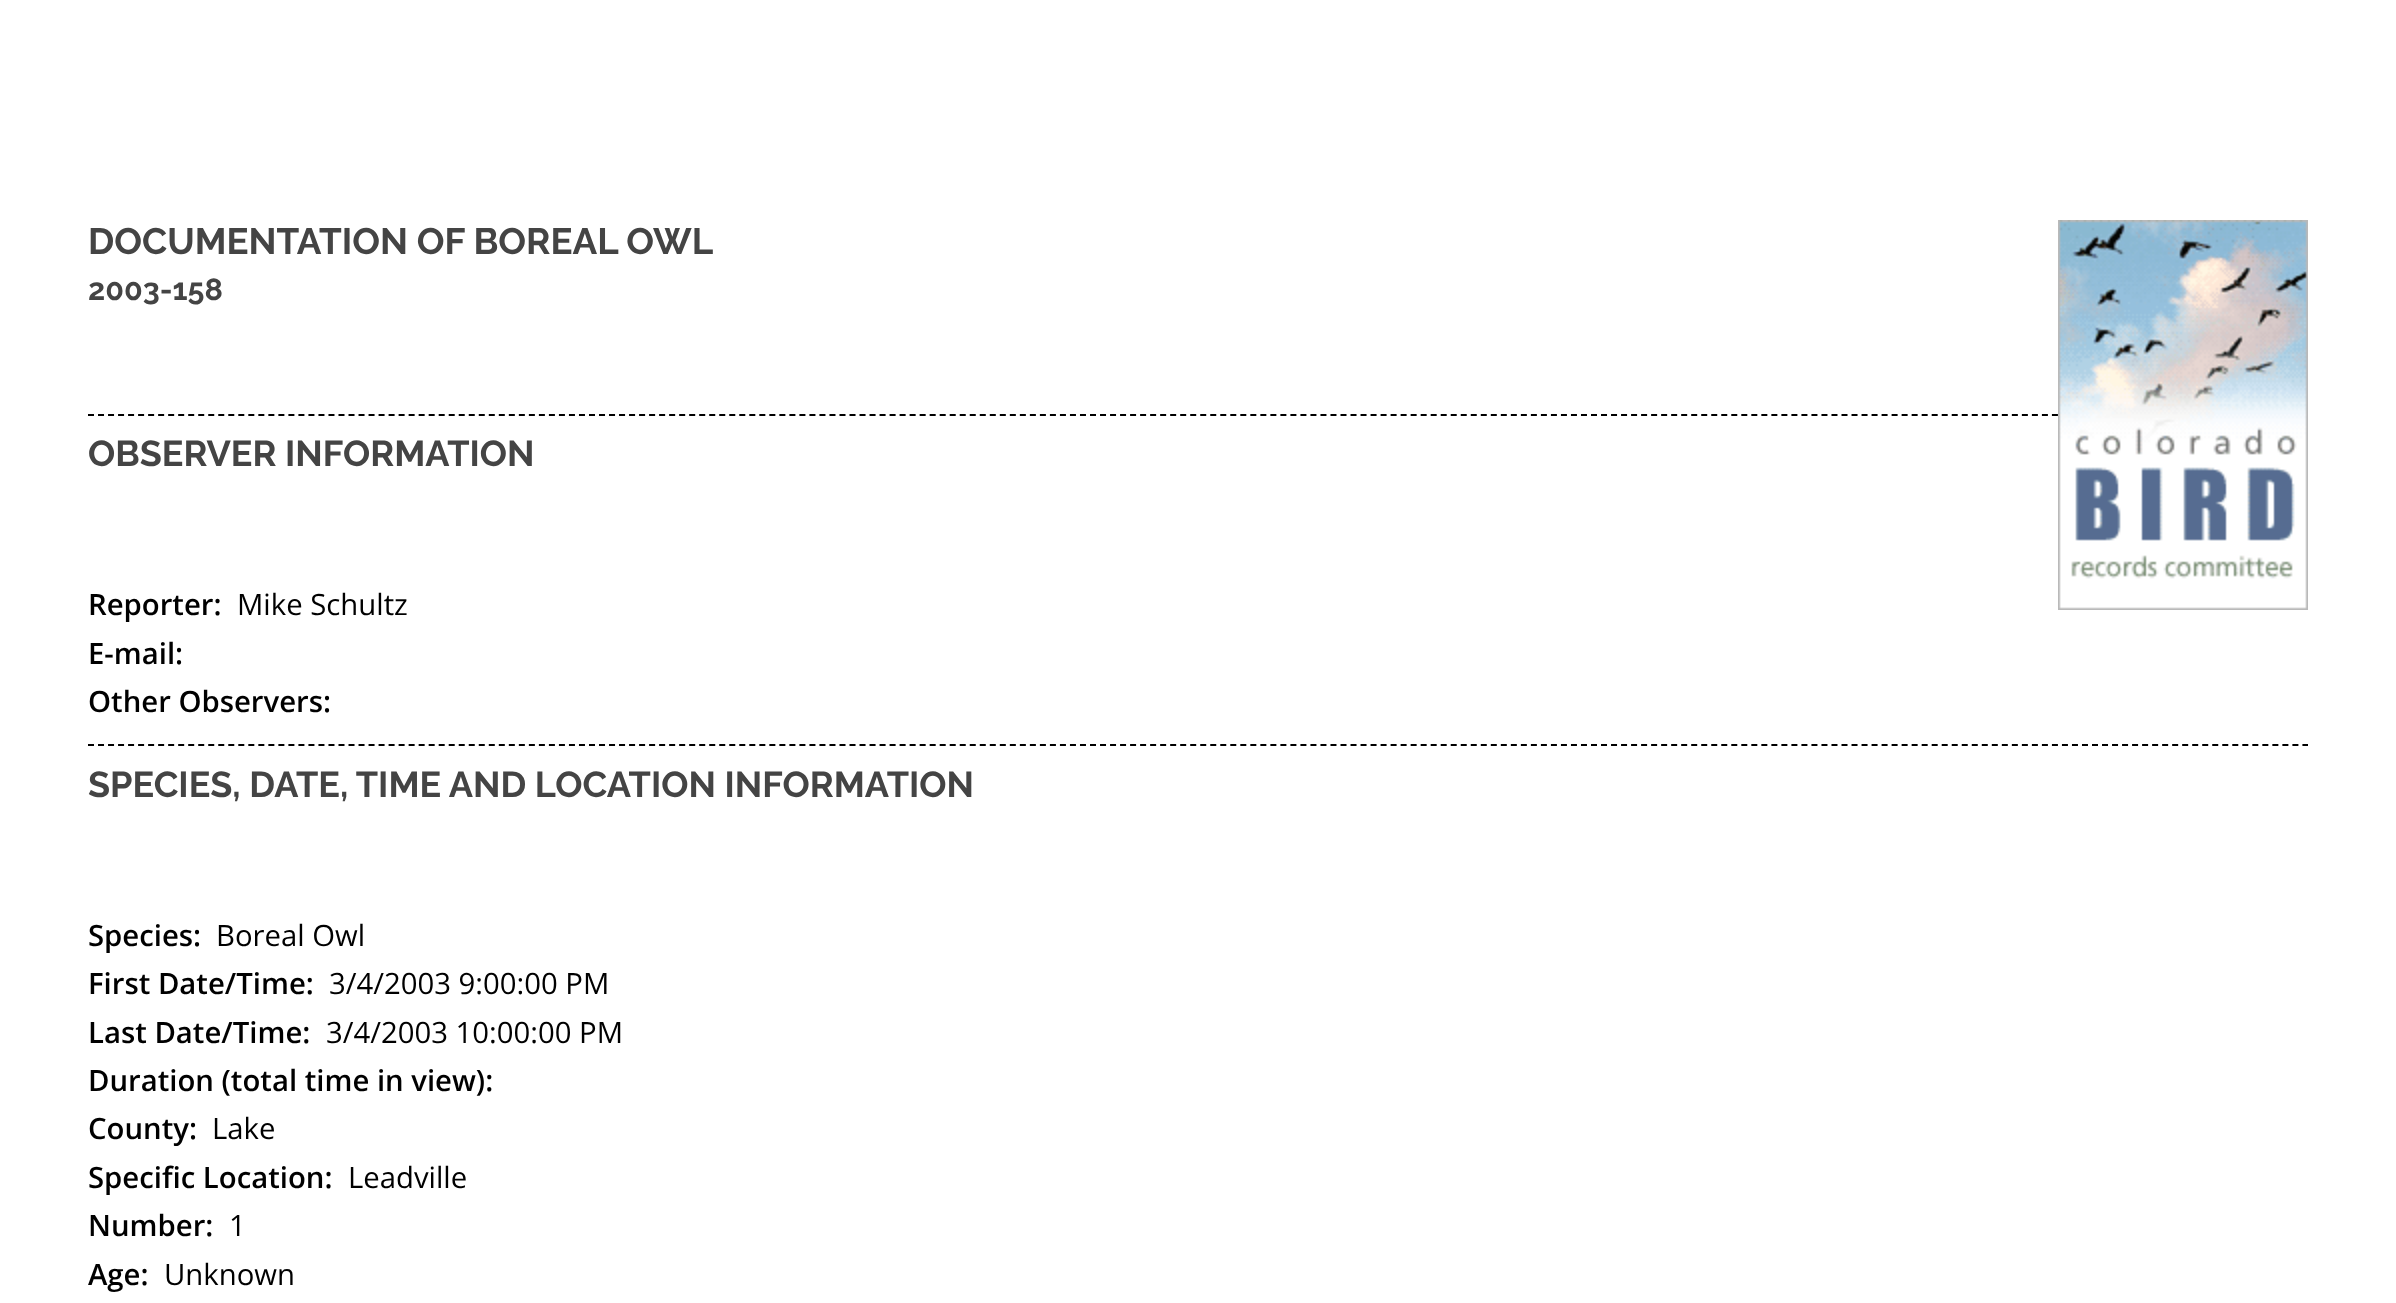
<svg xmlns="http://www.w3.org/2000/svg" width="2396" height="1303">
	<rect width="100%" height="100%" fill="#FFFFFF" />
	<text x="88" y="254" font-family="Raleway" font-size="36.7" font-weight="700" fill="#444444">DOCUMENTATION OF BOREAL OWL</text>
	<path d="M88 415H2308" fill="none" stroke="#000000" stroke-width="2" stroke-dasharray="6 4.02" />
	<image x="2058" y="220" width="250" height="390" href="assets/img1.png" />
	<text x="88" y="300" font-family="Raleway" font-size="30.5" font-weight="700" fill="#444444">2003-158</text>
	<text x="88" y="466" font-family="Raleway" font-size="36" font-weight="700" fill="#444444">OBSERVER INFORMATION</text>
	<text x="88" y="615" font-family="Open Sans" font-size="29.3" font-weight="600" fill="#000000">Reporter:</text>
	<text x="237" y="615" font-family="Open Sans" font-size="29.3" fill="#000000">Mike Schultz</text>
	<g font-family="Open Sans" font-size="29.3" font-weight="600" fill="#000000">
		<text x="88" y="664">E-mail:</text>
		<text x="88" y="712">Other Observers:</text>
	</g>
	<path d="M88 745H2308" fill="none" stroke="#000000" stroke-width="2" stroke-dasharray="6 4.02" />
	<text x="88" y="797" font-family="Raleway" font-size="36" font-weight="700" fill="#444444">SPECIES, DATE, TIME AND LOCATION INFORMATION</text>
	<text x="88" y="946" font-family="Open Sans" font-size="29.3" font-weight="600" fill="#000000">Species:</text>
	<text x="216" y="946" font-family="Open Sans" font-size="29.3" fill="#000000">Boreal Owl</text>
	<text x="88" y="994" font-family="Open Sans" font-size="29.3" font-weight="600" fill="#000000">First Date/Time:</text>
	<text x="329" y="994" font-family="Open Sans" font-size="29.3" fill="#000000">3/4/2003 9:00:00 PM</text>
	<text x="88" y="1043" font-family="Open Sans" font-size="29.3" font-weight="600" fill="#000000">Last Date/Time:</text>
	<text x="326" y="1043" font-family="Open Sans" font-size="29.3" fill="#000000">3/4/2003 10:00:00 PM</text>
	<g font-family="Open Sans" font-size="29.3" font-weight="600" fill="#000000">
		<text x="88" y="1091">Duration (total time in view):</text>
		<text x="88" y="1139">County:</text>
	</g>
	<text x="212" y="1139" font-family="Open Sans" font-size="29.3" fill="#000000">Lake</text>
	<text x="88" y="1188" font-family="Open Sans" font-size="29.3" font-weight="600" fill="#000000">Specific Location:</text>
	<text x="348" y="1188" font-family="Open Sans" font-size="29.3" fill="#000000">Leadville</text>
	<text x="88" y="1236" font-family="Open Sans" font-size="29.3" font-weight="600" fill="#000000">Number:</text>
	<text x="229" y="1236" font-family="Open Sans" font-size="29.3" fill="#000000">1</text>
	<text x="88" y="1285" font-family="Open Sans" font-size="29.3" font-weight="600" fill="#000000">Age:</text>
	<text x="164" y="1285" font-family="Open Sans" font-size="29.3" fill="#000000">Unknown</text>
</svg>
